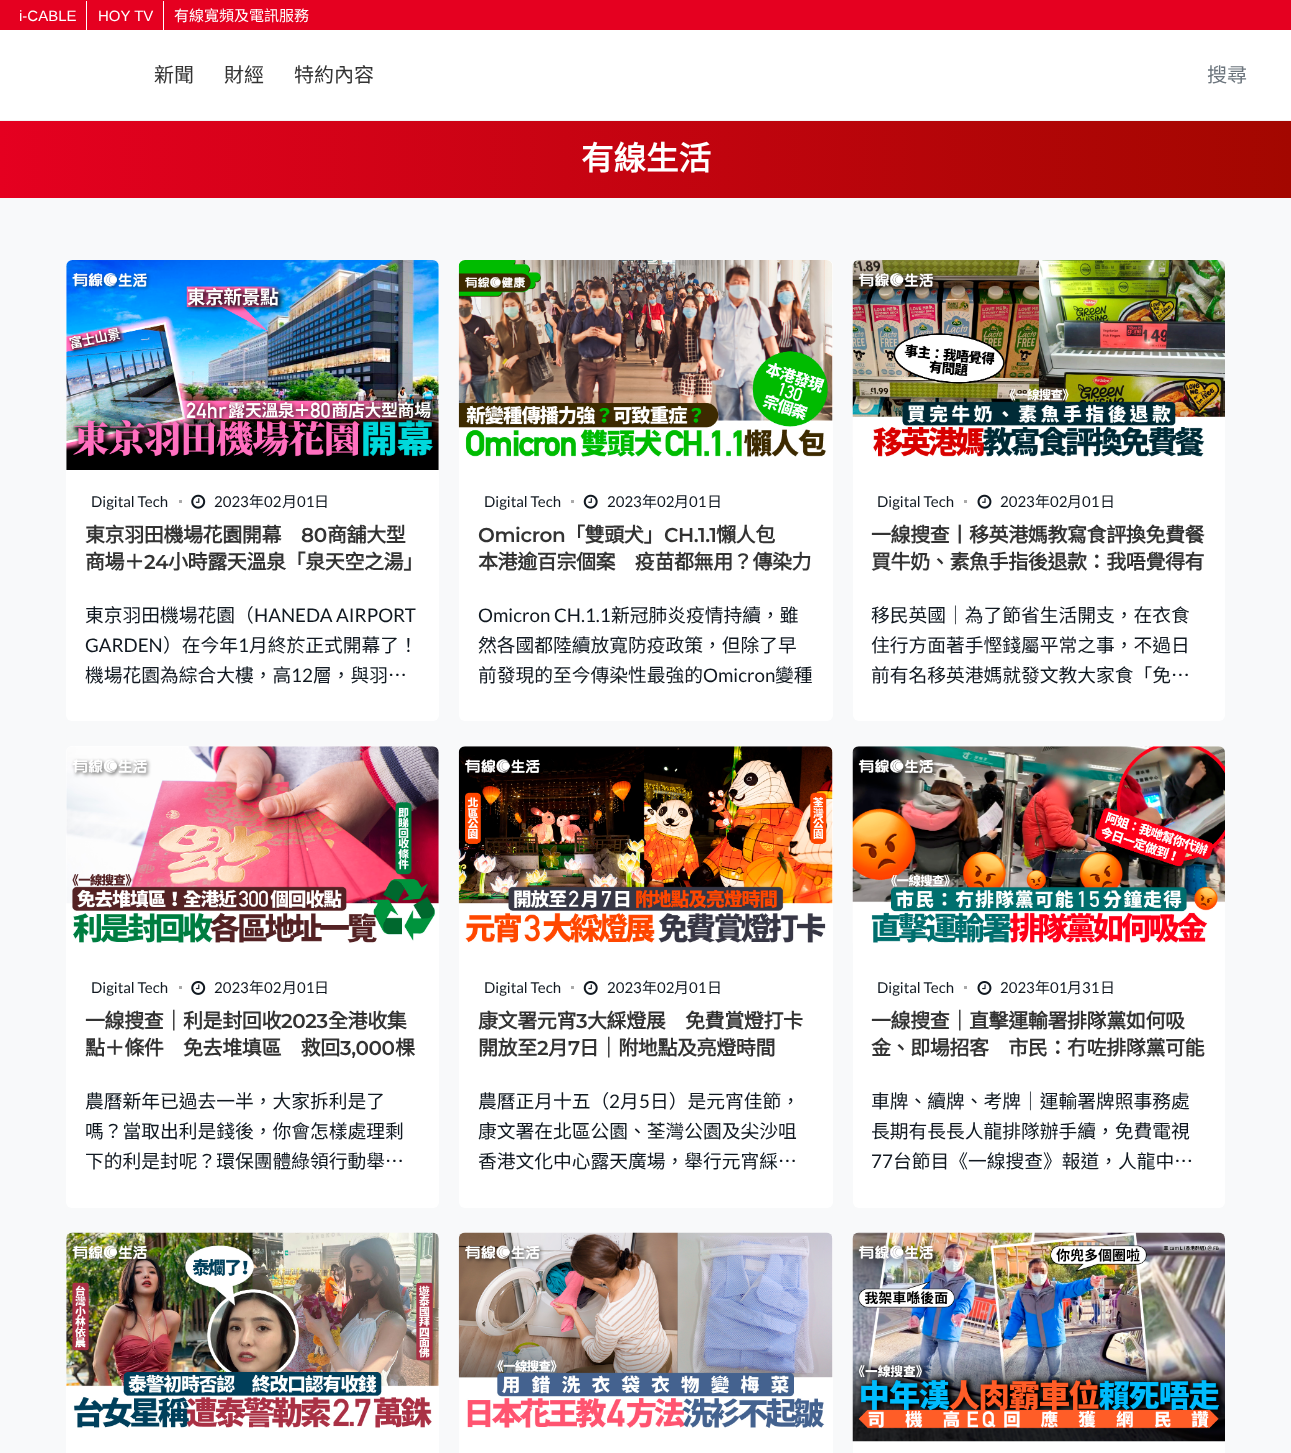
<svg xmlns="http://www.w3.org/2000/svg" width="1291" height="1453">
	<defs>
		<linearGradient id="g1" gradientUnits="userSpaceOnUse" x1="1291" y1="159" x2="0" y2="159"><stop offset="0" stop-color="#A30700" /><stop offset="1" stop-color="#E50020" /></linearGradient>
	</defs>
	<rect width="100%" height="100%" fill="#FFFFFF" />
	<rect x="0" y="120" width="1291" height="1" fill="#F3F3F3" />
	<rect x="0" y="0" width="1291" height="30" fill="#E50020" />
	<rect x="86" y="1" width="1" height="29" fill="#FFFFFF" />
	<text x="19" y="21" font-family="Liberation Sans" font-size="15" fill="#FFFFFF">i-CABLE</text>
	<rect x="163" y="1" width="1" height="29" fill="#FFFFFF" />
	<text x="98" y="21" font-family="Liberation Sans" font-size="15" fill="#FFFFFF">HOY TV</text>
	<text x="174" y="21" font-family="Noto Sans CJK HK" font-size="15" fill="#FFFFFF">有線寬頻及電訊服務</text>
	<g font-family="Noto Sans CJK HK" font-size="20" fill="#333333">
		<text x="154" y="82">新聞</text>
		<text x="224" y="82">財經</text>
		<text x="294" y="82">特約內容</text>
	</g>
	<text x="1207" y="82" font-family="Noto Sans CJK HK" font-size="20" fill="#6C757D">搜尋</text>
	<rect x="0" y="121" width="1291" height="77" fill="url(#g1)" />
	<text x="581" y="170" font-family="Noto Sans CJK HK" font-size="32.5" font-weight="700" fill="#FFFFFF">有線生活</text>
	<rect x="0" y="198" width="1291" height="1255" fill="#F8F9FA" />
	<rect x="66" y="260" width="373" height="461" rx="6" fill="#FFFFFF" />
	<image x="66" y="260" width="373" height="210" href="assets/img1.png" />
	<text x="91" y="507" font-family="Lato" font-size="15" fill="#101820">Digital Tech</text>
	<rect x="179" y="500" width="3" height="3" fill="#AAAAAA" />
	<image x="191" y="494" width="15" height="15" href="assets/img2.png" />
	<text x="214" y="507" font-family="Lato" font-size="15" fill="#101820">2023</text>
	<text x="249" y="507" font-family="Noto Sans CJK HK" font-size="15" fill="#101820">年</text>
	<text x="264" y="507" font-family="Lato" font-size="15" fill="#101820">02</text>
	<text x="282" y="507" font-family="Noto Sans CJK HK" font-size="15" fill="#101820">月</text>
	<text x="297" y="507" font-family="Lato" font-size="15" fill="#101820">01</text>
	<text x="314" y="507" font-family="Noto Sans CJK HK" font-size="15" fill="#101820">日</text>
	<text x="85" y="542" font-family="Noto Sans CJK HK" font-size="20" font-weight="700" letter-spacing="-0.4" fill="#333333">東京羽田機場花園開幕</text>
	<text x="301" y="542" font-family="Montserrat" font-size="20" font-weight="600" letter-spacing="-0.4" fill="#333333">80</text>
	<g font-family="Noto Sans CJK HK" font-size="20" font-weight="700" letter-spacing="-0.4" fill="#333333">
		<text x="327" y="542">商舖大型</text>
		<text x="85" y="569">商場＋</text>
	</g>
	<text x="144" y="569" font-family="Montserrat" font-size="20" font-weight="600" letter-spacing="-0.4" fill="#333333">24</text>
	<text x="168" y="569" font-family="Noto Sans CJK HK" font-size="20" font-weight="700" letter-spacing="-0.4" fill="#333333">小時露天溫泉「泉天空之湯」</text>
	<text x="85" y="622" font-family="Noto Sans CJK HK" font-size="18.75" fill="#101820">東京羽田機場花園（</text>
	<g font-family="Lato" font-size="18.75" fill="#101820">
		<text x="254" y="622">HANEDA AIRPORT</text>
		<text x="85" y="652">GARDEN</text>
	</g>
	<text x="163" y="652" font-family="Noto Sans CJK HK" font-size="18.75" fill="#101820">）在今年</text>
	<text x="238" y="652" font-family="Lato" font-size="18.75" fill="#101820">1</text>
	<g font-family="Noto Sans CJK HK" font-size="18.75" fill="#101820">
		<text x="249" y="652">月終於正式開幕了！</text>
		<text x="85" y="682">機場花園為綜合大樓，高</text>
	</g>
	<text x="291" y="682" font-family="Lato" font-size="18.75" fill="#101820">12</text>
	<text x="313" y="682" font-family="Noto Sans CJK HK" font-size="18.75" fill="#101820">層，與羽…</text>
	<rect x="459" y="260" width="374" height="461" rx="6" fill="#FFFFFF" />
	<image x="458" y="260" width="375" height="197" href="assets/img3.png" />
	<text x="484" y="507" font-family="Lato" font-size="15" fill="#101820">Digital Tech</text>
	<rect x="571" y="500" width="3" height="3" fill="#AAAAAA" />
	<image x="583" y="494" width="15" height="15" href="assets/img4.png" />
	<text x="607" y="507" font-family="Lato" font-size="15" fill="#101820">2023</text>
	<text x="642" y="507" font-family="Noto Sans CJK HK" font-size="15" fill="#101820">年</text>
	<text x="657" y="507" font-family="Lato" font-size="15" fill="#101820">02</text>
	<text x="674" y="507" font-family="Noto Sans CJK HK" font-size="15" fill="#101820">月</text>
	<text x="689" y="507" font-family="Lato" font-size="15" fill="#101820">01</text>
	<text x="707" y="507" font-family="Noto Sans CJK HK" font-size="15" fill="#101820">日</text>
	<text x="478" y="542" font-family="Montserrat" font-size="20" font-weight="600" letter-spacing="-0.4" fill="#333333">Omicron</text>
	<text x="565" y="542" font-family="Noto Sans CJK HK" font-size="20" font-weight="700" letter-spacing="-0.4" fill="#333333">「雙頭犬」</text>
	<text x="664" y="542" font-family="Montserrat" font-size="20" font-weight="600" letter-spacing="-0.4" fill="#333333">CH.1.1</text>
	<g font-family="Noto Sans CJK HK" font-size="20" font-weight="700" letter-spacing="-0.4" fill="#333333">
		<text x="716" y="542">懶人包</text>
		<text x="478" y="569">本港逾百宗個案　疫苗都無用？傳染力</text>
	</g>
	<text x="478" y="622" font-family="Lato" font-size="18.75" fill="#101820">Omicron CH.1.1</text>
	<g font-family="Noto Sans CJK HK" font-size="18.75" fill="#101820">
		<text x="611" y="622">新冠肺炎疫情持續，雖</text>
		<text x="478" y="652">然各國都陸續放寬防疫政策，但除了早</text>
		<text x="478" y="682">前發現的至今傳染性最強的</text>
	</g>
	<text x="703" y="682" font-family="Lato" font-size="18.75" fill="#101820">Omicron</text>
	<text x="775" y="682" font-family="Noto Sans CJK HK" font-size="18.75" fill="#101820">變種</text>
	<rect x="853" y="260" width="372" height="461" rx="6" fill="#FFFFFF" />
	<image x="852" y="260" width="373" height="197" href="assets/img5.png" />
	<text x="877" y="507" font-family="Lato" font-size="15" fill="#101820">Digital Tech</text>
	<rect x="964" y="500" width="3" height="3" fill="#AAAAAA" />
	<image x="977" y="494" width="15" height="15" href="assets/img6.png" />
	<text x="1000" y="507" font-family="Lato" font-size="15" fill="#101820">2023</text>
	<text x="1035" y="507" font-family="Noto Sans CJK HK" font-size="15" fill="#101820">年</text>
	<text x="1050" y="507" font-family="Lato" font-size="15" fill="#101820">02</text>
	<text x="1067" y="507" font-family="Noto Sans CJK HK" font-size="15" fill="#101820">月</text>
	<text x="1082" y="507" font-family="Lato" font-size="15" fill="#101820">01</text>
	<text x="1100" y="507" font-family="Noto Sans CJK HK" font-size="15" fill="#101820">日</text>
	<g font-family="Noto Sans CJK HK" font-size="20" font-weight="700" letter-spacing="-0.4" fill="#333333">
		<text x="871" y="542">一線搜查丨移英港媽教寫食評換免費餐</text>
		<text x="871" y="569">買牛奶、素魚手指後退款：我唔覺得有</text>
	</g>
	<g font-family="Noto Sans CJK HK" font-size="18.75" fill="#101820">
		<text x="871" y="622">移民英國｜為了節省生活開支，在衣食</text>
		<text x="871" y="652">住行方面著手慳錢屬平常之事，不過日</text>
		<text x="871" y="682">前有名移英港媽就發文教大家食「免…</text>
	</g>
	<rect x="66" y="746" width="373" height="462" rx="6" fill="#FFFFFF" />
	<image x="66" y="746" width="373" height="197" href="assets/img7.png" />
	<text x="91" y="993" font-family="Lato" font-size="15" fill="#101820">Digital Tech</text>
	<rect x="179" y="986" width="3" height="3" fill="#AAAAAA" />
	<image x="191" y="981" width="15" height="14" href="assets/img8.png" />
	<text x="214" y="993" font-family="Lato" font-size="15" fill="#101820">2023</text>
	<text x="249" y="993" font-family="Noto Sans CJK HK" font-size="15" fill="#101820">年</text>
	<text x="264" y="993" font-family="Lato" font-size="15" fill="#101820">02</text>
	<text x="282" y="993" font-family="Noto Sans CJK HK" font-size="15" fill="#101820">月</text>
	<text x="297" y="993" font-family="Lato" font-size="15" fill="#101820">01</text>
	<text x="314" y="993" font-family="Noto Sans CJK HK" font-size="15" fill="#101820">日</text>
	<text x="85" y="1028" font-family="Noto Sans CJK HK" font-size="20" font-weight="700" letter-spacing="-0.4" fill="#333333">一線搜查｜利是封回收</text>
	<text x="281" y="1028" font-family="Montserrat" font-size="20" font-weight="600" letter-spacing="-0.4" fill="#333333">2023</text>
	<g font-family="Noto Sans CJK HK" font-size="20" font-weight="700" letter-spacing="-0.4" fill="#333333">
		<text x="328" y="1028">全港收集</text>
		<text x="85" y="1055">點＋條件　免去堆填區　救回</text>
	</g>
	<text x="340" y="1055" font-family="Montserrat" font-size="20" font-weight="600" letter-spacing="-0.4" fill="#333333">3,000</text>
	<text x="395" y="1055" font-family="Noto Sans CJK HK" font-size="20" font-weight="700" letter-spacing="-0.4" fill="#333333">棵</text>
	<g font-family="Noto Sans CJK HK" font-size="18.75" fill="#101820">
		<text x="85" y="1108">農曆新年已過去一半，大家拆利是了</text>
		<text x="85" y="1138">嗎？當取出利是錢後，你會怎樣處理剩</text>
		<text x="85" y="1168">下的利是封呢？環保團體綠領行動舉…</text>
	</g>
	<rect x="459" y="746" width="374" height="462" rx="6" fill="#FFFFFF" />
	<image x="458" y="746" width="375" height="197" href="assets/img9.png" />
	<text x="484" y="993" font-family="Lato" font-size="15" fill="#101820">Digital Tech</text>
	<rect x="571" y="986" width="3" height="3" fill="#AAAAAA" />
	<image x="583" y="981" width="15" height="14" href="assets/img10.png" />
	<text x="607" y="993" font-family="Lato" font-size="15" fill="#101820">2023</text>
	<text x="642" y="993" font-family="Noto Sans CJK HK" font-size="15" fill="#101820">年</text>
	<text x="657" y="993" font-family="Lato" font-size="15" fill="#101820">02</text>
	<text x="674" y="993" font-family="Noto Sans CJK HK" font-size="15" fill="#101820">月</text>
	<text x="689" y="993" font-family="Lato" font-size="15" fill="#101820">01</text>
	<text x="707" y="993" font-family="Noto Sans CJK HK" font-size="15" fill="#101820">日</text>
	<text x="478" y="1028" font-family="Noto Sans CJK HK" font-size="20" font-weight="700" letter-spacing="-0.4" fill="#333333">康文署元宵</text>
	<text x="576" y="1028" font-family="Montserrat" font-size="20" font-weight="600" letter-spacing="-0.4" fill="#333333">3</text>
	<g font-family="Noto Sans CJK HK" font-size="20" font-weight="700" letter-spacing="-0.4" fill="#333333">
		<text x="587" y="1028">大綵燈展　免費賞燈打卡</text>
		<text x="478" y="1055">開放至</text>
	</g>
	<text x="537" y="1055" font-family="Montserrat" font-size="20" font-weight="600" letter-spacing="-0.4" fill="#333333">2</text>
	<text x="548" y="1055" font-family="Noto Sans CJK HK" font-size="20" font-weight="700" letter-spacing="-0.4" fill="#333333">月</text>
	<text x="568" y="1055" font-family="Montserrat" font-size="20" font-weight="600" letter-spacing="-0.4" fill="#333333">7</text>
	<text x="579" y="1055" font-family="Noto Sans CJK HK" font-size="20" font-weight="700" letter-spacing="-0.4" fill="#333333">日｜附地點及亮燈時間</text>
	<text x="478" y="1108" font-family="Noto Sans CJK HK" font-size="18.75" fill="#101820">農曆正月十五（</text>
	<text x="609" y="1108" font-family="Lato" font-size="18.75" fill="#101820">2</text>
	<text x="620" y="1108" font-family="Noto Sans CJK HK" font-size="18.75" fill="#101820">月</text>
	<text x="639" y="1108" font-family="Lato" font-size="18.75" fill="#101820">5</text>
	<g font-family="Noto Sans CJK HK" font-size="18.75" fill="#101820">
		<text x="650" y="1108">日）是元宵佳節，</text>
		<text x="478" y="1138">康文署在北區公園、荃灣公園及尖沙咀</text>
		<text x="478" y="1168">香港文化中心露天廣場，舉行元宵綵…</text>
	</g>
	<rect x="853" y="746" width="372" height="462" rx="6" fill="#FFFFFF" />
	<image x="852" y="746" width="373" height="197" href="assets/img11.png" />
	<text x="877" y="993" font-family="Lato" font-size="15" fill="#101820">Digital Tech</text>
	<rect x="964" y="986" width="3" height="3" fill="#AAAAAA" />
	<image x="977" y="981" width="15" height="14" href="assets/img12.png" />
	<text x="1000" y="993" font-family="Lato" font-size="15" fill="#101820">2023</text>
	<text x="1035" y="993" font-family="Noto Sans CJK HK" font-size="15" fill="#101820">年</text>
	<text x="1050" y="993" font-family="Lato" font-size="15" fill="#101820">01</text>
	<text x="1067" y="993" font-family="Noto Sans CJK HK" font-size="15" fill="#101820">月</text>
	<text x="1082" y="993" font-family="Lato" font-size="15" fill="#101820">31</text>
	<text x="1100" y="993" font-family="Noto Sans CJK HK" font-size="15" fill="#101820">日</text>
	<g font-family="Noto Sans CJK HK" font-size="20" font-weight="700" letter-spacing="-0.4" fill="#333333">
		<text x="871" y="1028">一線搜查｜直擊運輸署排隊黨如何吸</text>
		<text x="871" y="1055">金、即場招客　市民：冇咗排隊黨可能</text>
	</g>
	<g font-family="Noto Sans CJK HK" font-size="18.75" fill="#101820">
		<text x="871" y="1108">車牌、續牌、考牌｜運輸署牌照事務處</text>
		<text x="871" y="1138">長期有長長人龍排隊辦手續，免費電視</text>
	</g>
	<text x="871" y="1168" font-family="Lato" font-size="18.75" fill="#101820">77</text>
	<text x="893" y="1168" font-family="Noto Sans CJK HK" font-size="18.75" fill="#101820">台節目《一線搜查》報道，人龍中…</text>
	<rect x="66" y="1233" width="373" height="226" rx="6" fill="#FFFFFF" />
	<image x="66" y="1232" width="373" height="196" href="assets/img13.png" />
	<rect x="459" y="1233" width="374" height="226" rx="6" fill="#FFFFFF" />
	<image x="458" y="1232" width="375" height="197" href="assets/img14.png" />
	<rect x="853" y="1233" width="372" height="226" rx="6" fill="#FFFFFF" />
	<image x="852" y="1232" width="373" height="210" href="assets/img15.png" />
</svg>
